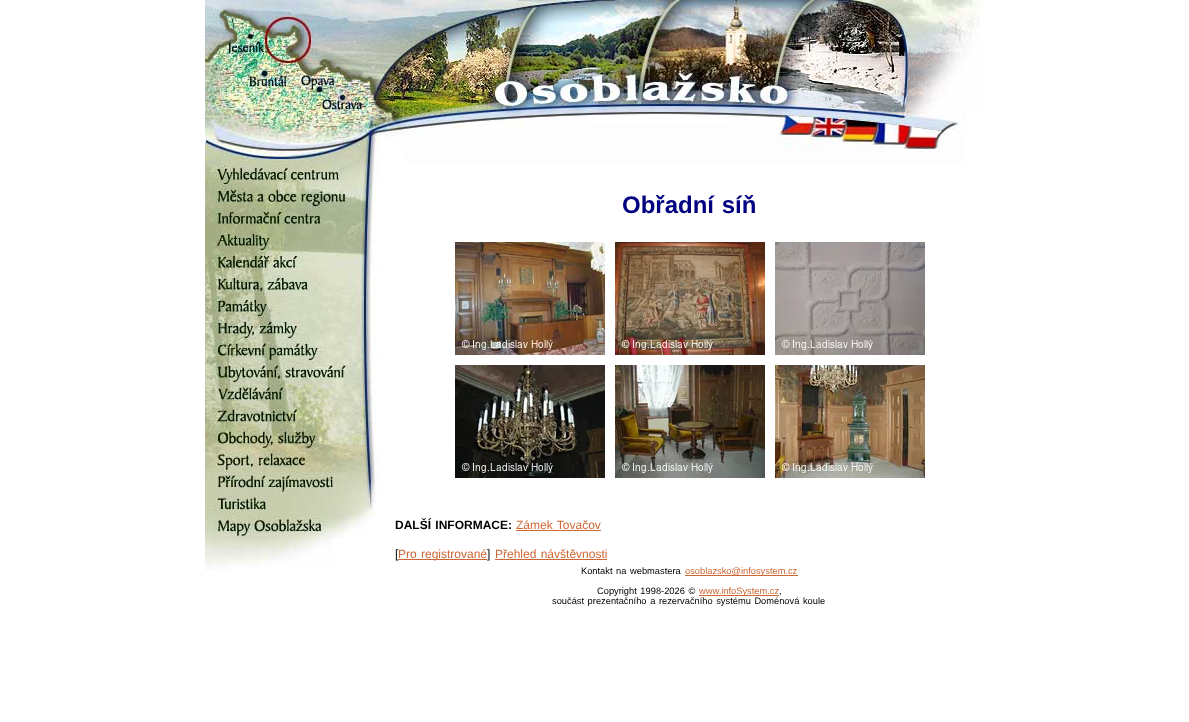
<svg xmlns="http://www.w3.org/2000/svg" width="1189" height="722">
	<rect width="100%" height="100%" fill="#FFFFFF" />
	<image x="205" y="0" width="780" height="115" href="assets/img1.png" />
	<image x="205" y="115" width="760" height="49" href="assets/img2.png" />
	<image x="205" y="164" width="176" height="22" href="assets/img3.png" />
	<image x="205" y="186" width="172" height="22" href="assets/img4.png" />
	<image x="205" y="208" width="168" height="22" href="assets/img5.png" />
	<image x="205" y="230" width="172" height="22" href="assets/img6.png" />
	<image x="205" y="252" width="176" height="22" href="assets/img7.png" />
	<image x="205" y="274" width="171" height="22" href="assets/img8.png" />
	<image x="205" y="296" width="171" height="22" href="assets/img9.png" />
	<image x="205" y="318" width="171" height="22" href="assets/img10.png" />
	<image x="205" y="340" width="176" height="22" href="assets/img11.png" />
	<image x="205" y="362" width="172" height="22" href="assets/img12.png" />
	<image x="205" y="384" width="176" height="22" href="assets/img13.png" />
	<image x="205" y="406" width="172" height="22" href="assets/img14.png" />
	<image x="205" y="428" width="172" height="22" href="assets/img15.png" />
	<image x="205" y="450" width="176" height="22" href="assets/img16.png" />
	<image x="205" y="472" width="176" height="22" href="assets/img17.png" />
	<image x="205" y="494" width="176" height="22" href="assets/img18.png" />
	<image x="205" y="516" width="165" height="22" href="assets/img19.png" />
	<image x="205" y="538" width="128" height="32" href="assets/img20.png" />
	<text x="622" y="213" word-spacing="1" font-family="Liberation Sans" font-size="24" font-weight="700" fill="#000080">Obřadní síň</text>
	<image x="455" y="242" width="150" height="113" href="assets/img21.png" />
	<image x="615" y="242" width="150" height="113" href="assets/img22.png" />
	<image x="775" y="242" width="150" height="113" href="assets/img23.png" />
	<image x="455" y="365" width="150" height="113" href="assets/img24.png" />
	<image x="615" y="365" width="150" height="113" href="assets/img25.png" />
	<image x="775" y="365" width="150" height="113" href="assets/img26.png" />
	<text x="395" y="529" word-spacing="1" font-family="Liberation Sans" font-size="12" font-weight="700" fill="#000000">DALŠÍ INFORMACE:</text>
	<text x="516" y="529" word-spacing="1" font-family="Liberation Sans" font-size="12" fill="#CC6633">Zámek Tovačov</text>
	<rect x="516" y="530" width="85" height="1" fill="#CC6633" />
	<text x="395" y="558" font-family="Liberation Sans" font-size="12" fill="#000000">[</text>
	<rect x="398" y="559" width="89" height="1" fill="#CC6633" />
	<text x="398" y="558" word-spacing="1" font-family="Liberation Sans" font-size="12" fill="#CC6633">Pro registrované</text>
	<text x="487" y="558" font-family="Liberation Sans" font-size="12" fill="#000000">]</text>
	<text x="495" y="558" word-spacing="1" font-family="Liberation Sans" font-size="12" fill="#CC6633">Přehled návštěvnosti</text>
	<rect x="495" y="559" width="112" height="1" fill="#CC6633" />
	<text x="581" y="574" word-spacing="1" font-family="Liberation Sans" font-size="9.3" fill="#000000">Kontakt na webmastera</text>
	<rect x="685" y="575" width="113" height="1" fill="#CC6633" />
	<text x="685" y="574" font-family="Liberation Sans" font-size="9.3" fill="#CC6633">osoblazsko@infosystem.cz</text>
	<text x="597" y="594" word-spacing="1" font-family="Liberation Sans" font-size="9.3" fill="#000000">Copyright 1998-2026 ©</text>
	<rect x="699" y="595" width="80" height="1" fill="#CC6633" />
	<text x="699" y="594" font-family="Liberation Sans" font-size="9.3" fill="#CC6633">www.infoSystem.cz</text>
	<g font-family="Liberation Sans" font-size="9.3" fill="#000000">
		<text x="779" y="594">,</text>
		<text x="552" y="604" word-spacing="1">součást prezentačního a rezervačního systému Doménová koule</text>
	</g>
</svg>
